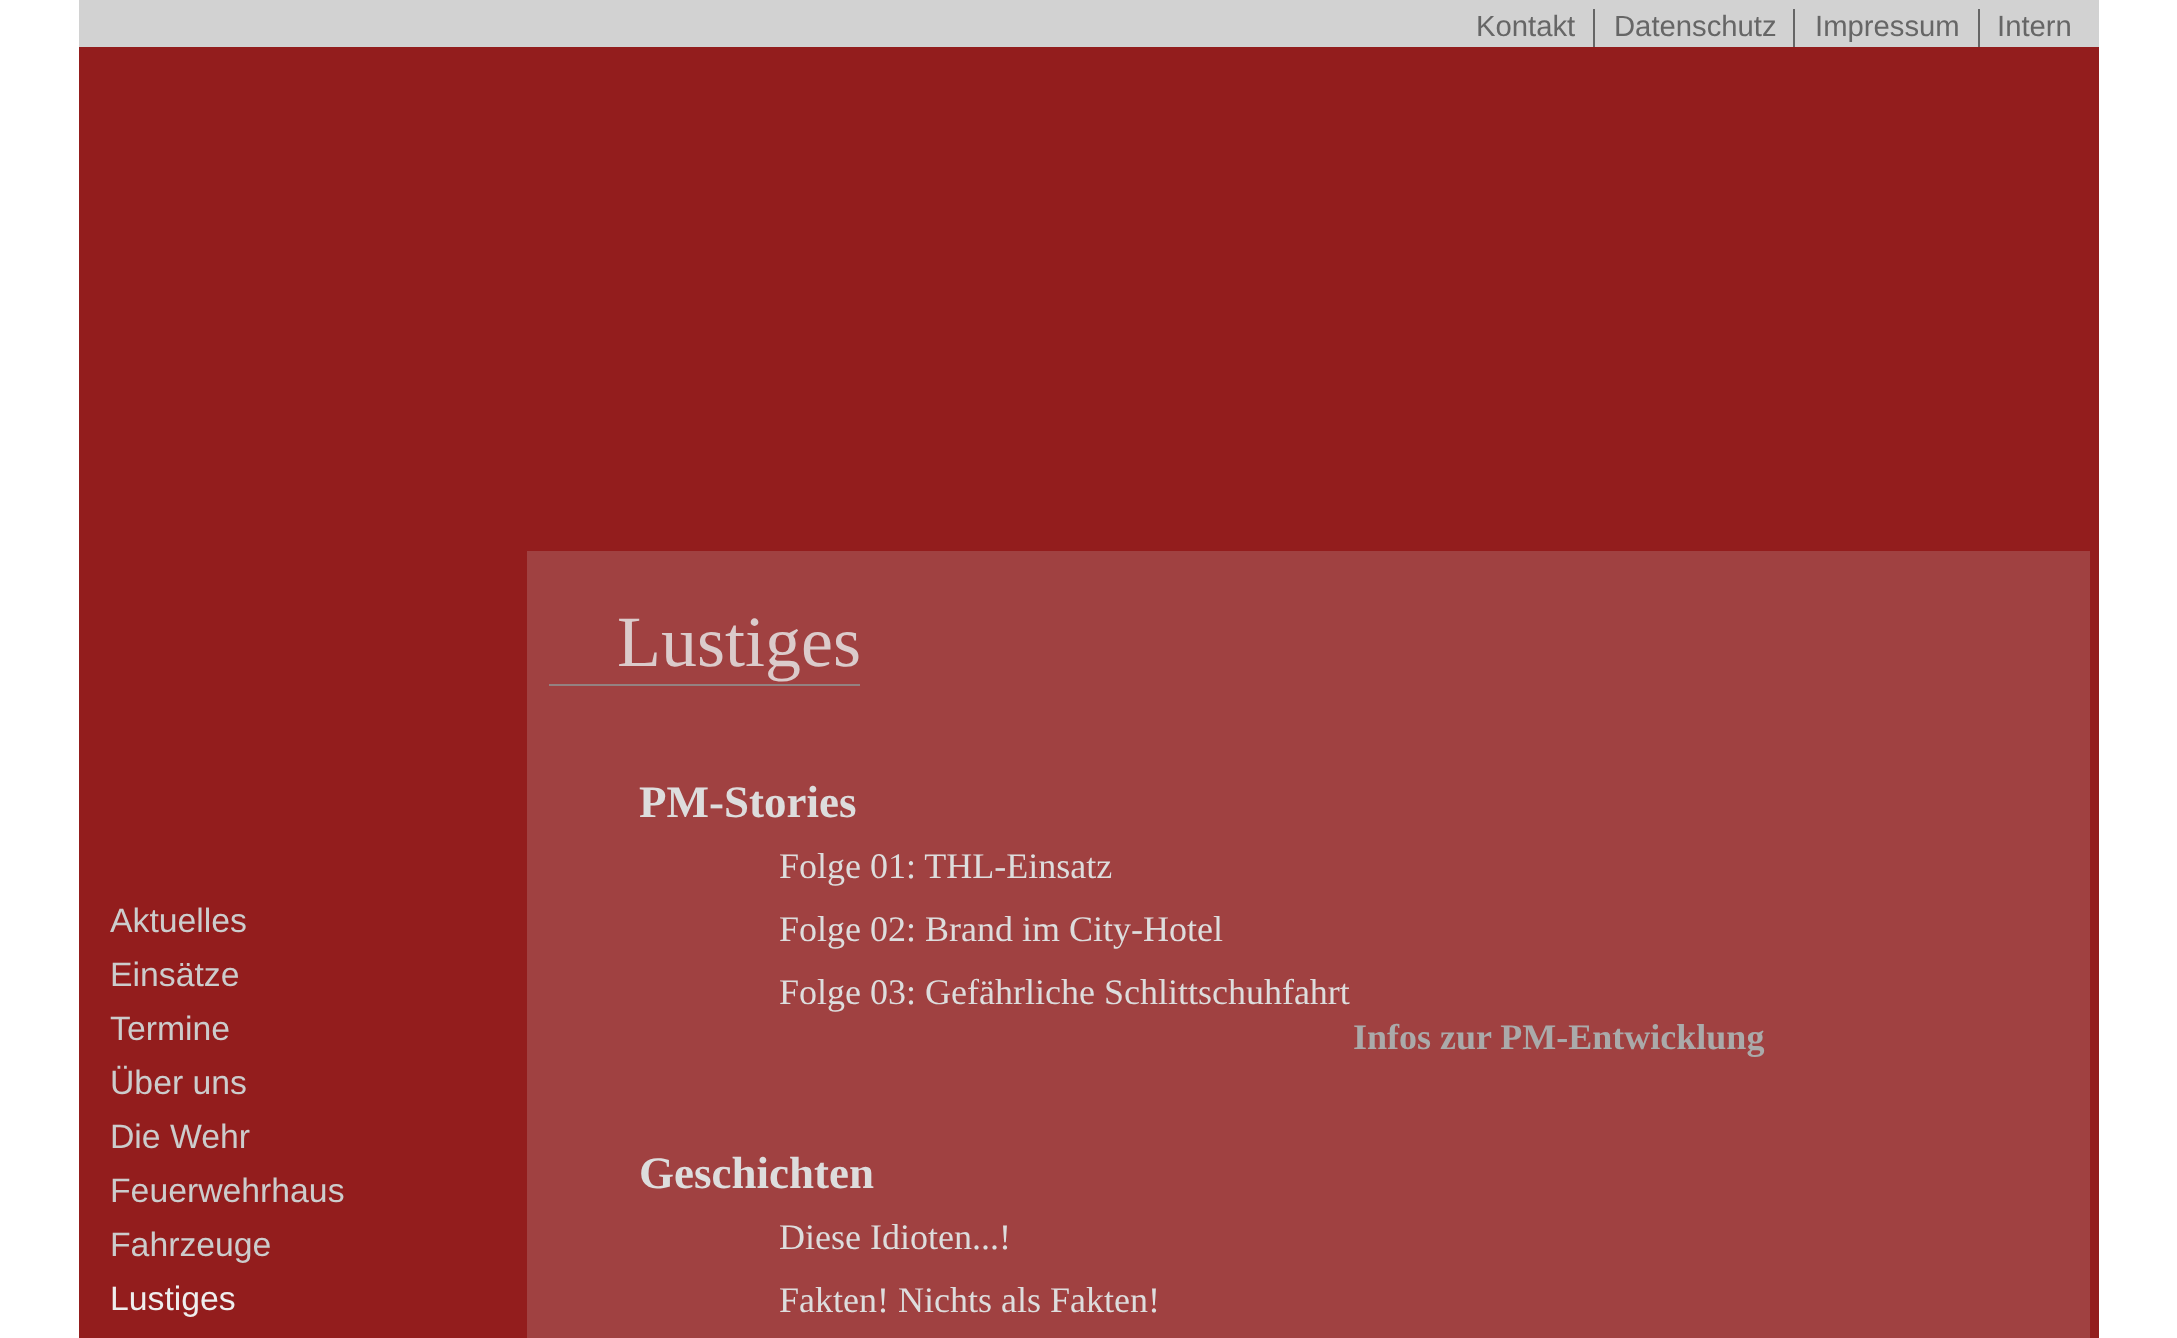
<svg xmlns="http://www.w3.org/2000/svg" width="2177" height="1338">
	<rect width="100%" height="100%" fill="#FFFFFF" />
	<rect x="79" y="0" width="2020" height="47" fill="#D2D2D2" />
	<rect x="1593" y="9" width="2" height="38" fill="#666666" />
	<text x="1476" y="36" font-family="Liberation Sans" font-size="29.25" fill="#666666">Kontakt</text>
	<rect x="1793" y="9" width="2" height="38" fill="#666666" />
	<text x="1614" y="36" font-family="Liberation Sans" font-size="29.25" fill="#666666">Datenschutz</text>
	<rect x="1978" y="9" width="2" height="38" fill="#666666" />
	<g font-family="Liberation Sans" font-size="29.25" fill="#666666">
		<text x="1815" y="36">Impressum</text>
		<text x="1997" y="36">Intern</text>
	</g>
	<rect x="79" y="47" width="2020" height="1291" fill="#931D1D" />
	<g font-family="Liberation Sans" font-size="33.75" fill="#CCCCCC">
		<text x="110" y="932">Aktuelles</text>
		<text x="110" y="986">Einsätze</text>
		<text x="110" y="1040">Termine</text>
		<text x="110" y="1094">Über uns</text>
		<text x="110" y="1148">Die Wehr</text>
		<text x="110" y="1202">Feuerwehrhaus</text>
		<text x="110" y="1256">Fahrzeuge</text>
	</g>
	<text x="110" y="1310" font-family="Liberation Sans" font-size="33.75" fill="#EEEEEE">Lustiges</text>
	<rect x="527" y="551" width="1563" height="787" fill="#A04141" />
	<rect x="549" y="684" width="311" height="2" fill="#948181" />
	<text x="617" y="666" font-family="Liberation Serif" font-size="72" fill="#DBCBCB">Lustiges</text>
	<text x="639" y="817" font-family="Liberation Serif" font-size="45" font-weight="700" fill="#DDDDDD">PM-Stories</text>
	<g font-family="Liberation Serif" font-size="36" fill="#DDDDDD">
		<text x="779" y="878">Folge 01: THL-Einsatz</text>
		<text x="779" y="941">Folge 02: Brand im City-Hotel</text>
		<text x="779" y="1004">Folge 03: Gefährliche Schlittschuhfahrt</text>
	</g>
	<text x="1353" y="1049" font-family="Liberation Serif" font-size="36" font-weight="700" fill="#AAAAAA">Infos zur PM-Entwicklung</text>
	<text x="639" y="1188" font-family="Liberation Serif" font-size="45" font-weight="700" fill="#DDDDDD">Geschichten</text>
	<g font-family="Liberation Serif" font-size="36" fill="#DDDDDD">
		<text x="779" y="1249">Diese Idioten...!</text>
		<text x="779" y="1312">Fakten! Nichts als Fakten!</text>
	</g>
</svg>
